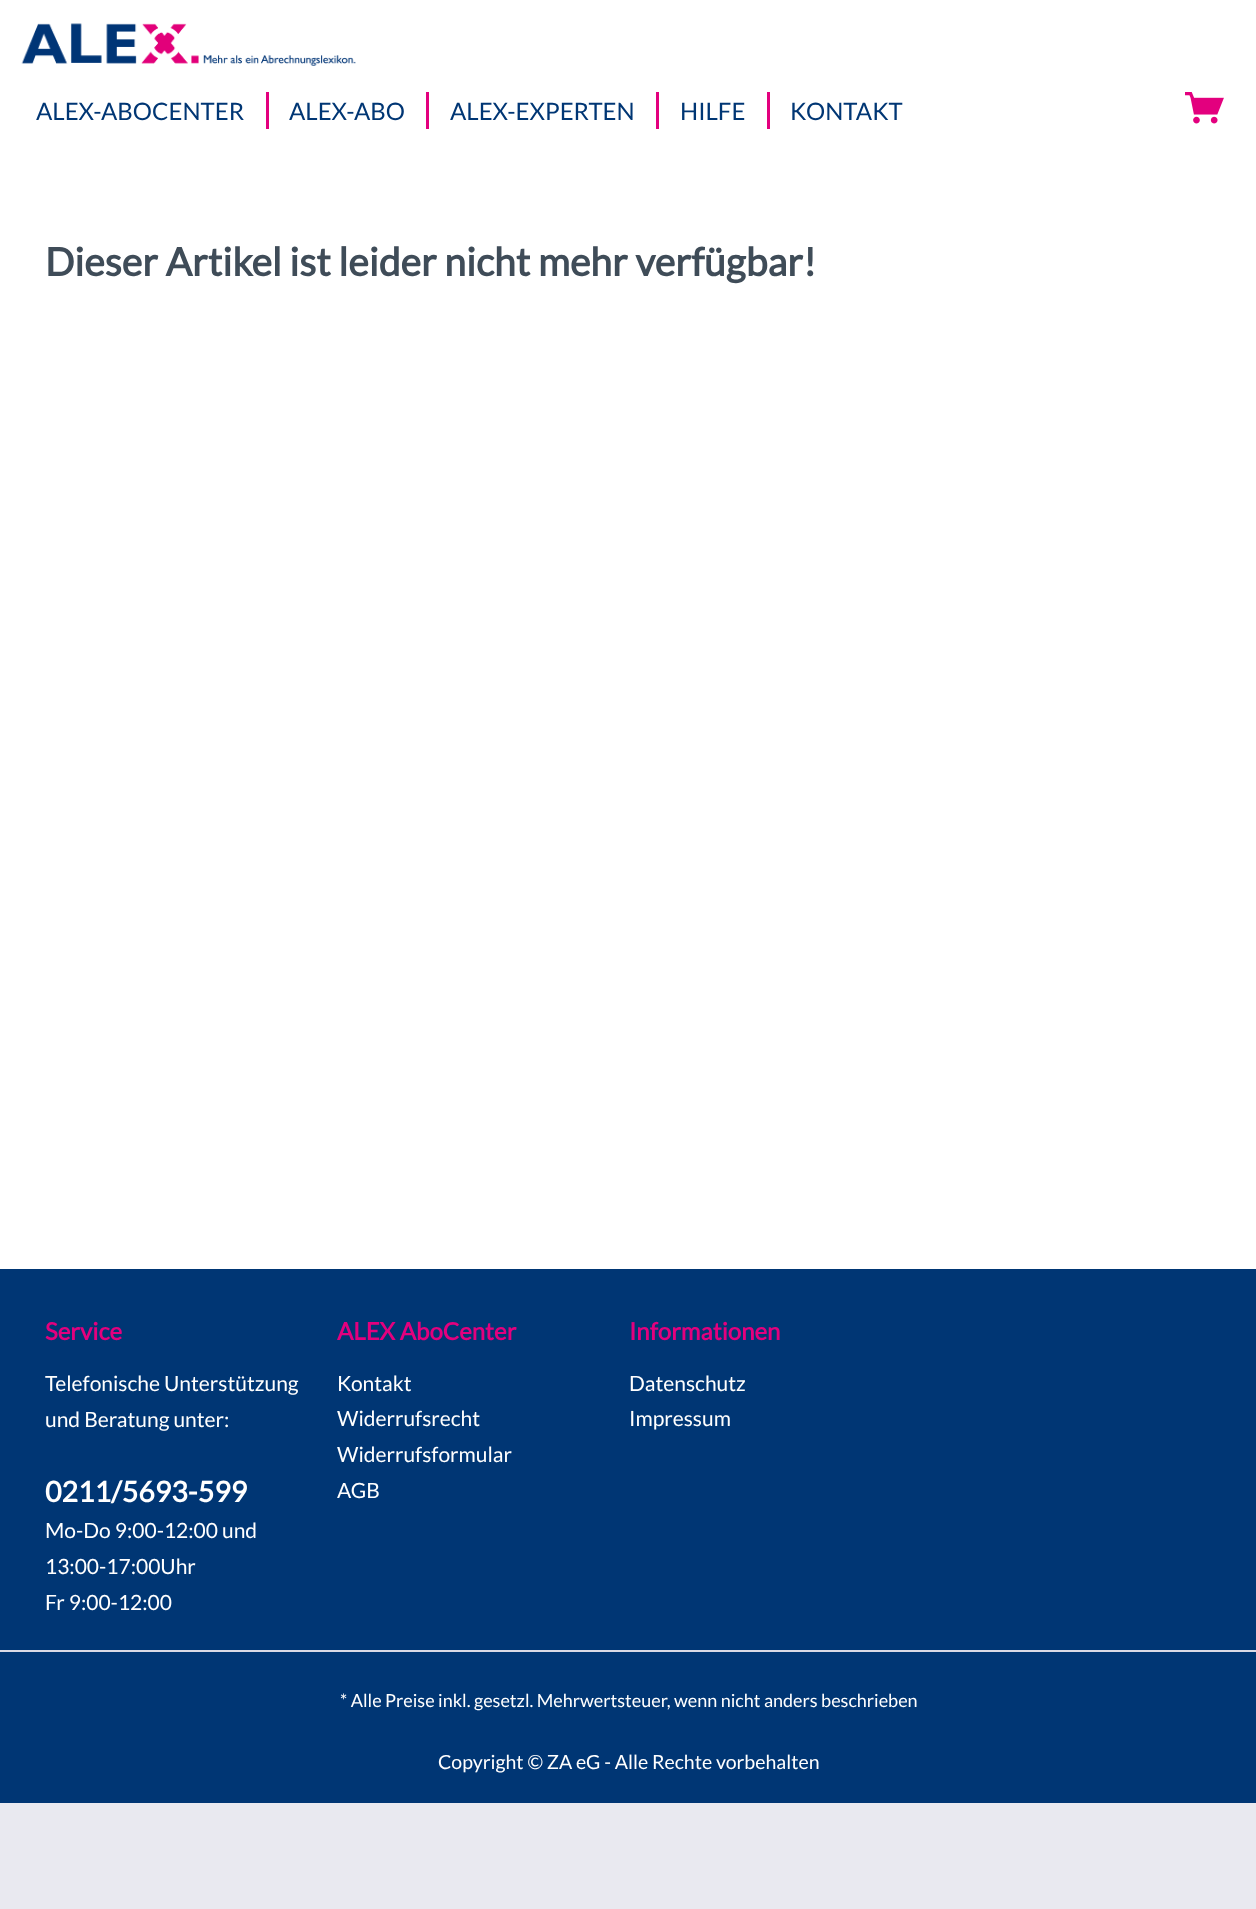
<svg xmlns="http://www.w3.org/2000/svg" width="1256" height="1909">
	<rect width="100%" height="100%" fill="#E9E9F0" />
	<rect x="0" y="0" width="1256" height="1269" fill="#FFFFFF" />
	<image x="21" y="23" width="335" height="43" href="assets/img1.png" />
	<rect x="266" y="92" width="3" height="37" fill="#E3007E" />
	<text x="36" y="120" font-family="Lato" font-size="24" fill="#003674">ALEX-ABOCENTER</text>
	<rect x="426" y="92" width="3" height="37" fill="#E3007E" />
	<text x="289" y="120" font-family="Lato" font-size="24" fill="#003674">ALEX-ABO</text>
	<rect x="656" y="92" width="3" height="37" fill="#E3007E" />
	<text x="450" y="120" font-family="Lato" font-size="24" fill="#003674">ALEX-EXPERTEN</text>
	<rect x="767" y="92" width="3" height="37" fill="#E3007E" />
	<g font-family="Lato" font-size="24" fill="#003674">
		<text x="680" y="120">HILFE</text>
		<text x="790" y="120">KONTAKT</text>
	</g>
	<image x="1185" y="92" width="39" height="32" href="assets/img2.png" />
	<text x="45" y="276" font-family="Lato" font-size="39" font-weight="700" fill="#3F4C58">Dieser Artikel ist leider nicht mehr verfügbar!</text>
	<rect x="0" y="1269" width="1256" height="381" fill="#003674" />
	<rect x="0" y="1650" width="1256" height="2" fill="#DADAE5" />
	<text x="45" y="1340" font-family="Lato" font-size="24" font-weight="700" fill="#E3007E">Service</text>
	<g font-family="Lato" font-size="21" fill="#FFFFFF">
		<text x="45" y="1391">Telefonische Unterstützung</text>
		<text x="45" y="1427">und Beratung unter:</text>
	</g>
	<text x="45" y="1502" font-family="Lato" font-size="28.5" font-weight="700" fill="#FFFFFF">0211/5693-599</text>
	<g font-family="Lato" font-size="21" fill="#FFFFFF">
		<text x="45" y="1538">Mo-Do 9:00-12:00 und</text>
		<text x="45" y="1574">13:00-17:00Uhr</text>
		<text x="45" y="1610">Fr 9:00-12:00</text>
	</g>
	<text x="337" y="1340" font-family="Lato" font-size="24" font-weight="700" fill="#E3007E">ALEX AboCenter</text>
	<g font-family="Lato" font-size="21" fill="#FFFFFF">
		<text x="337" y="1391">Kontakt</text>
		<text x="337" y="1426">Widerrufsrecht</text>
		<text x="337" y="1462">Widerrufsformular</text>
		<text x="337" y="1498">AGB</text>
	</g>
	<text x="629" y="1340" font-family="Lato" font-size="24" font-weight="700" fill="#E3007E">Informationen</text>
	<g font-family="Lato" font-size="21" fill="#FFFFFF">
		<text x="629" y="1391">Datenschutz</text>
		<text x="629" y="1426">Impressum</text>
	</g>
	<rect x="0" y="1652" width="1256" height="151" fill="#003674" />
	<text x="340" y="1707" font-family="Lato" font-size="18" fill="#FFFFFF">* Alle Preise inkl. gesetzl. Mehrwertsteuer, wenn nicht anders beschrieben</text>
	<text x="438" y="1769" font-family="Lato" font-size="19.5" fill="#FFFFFF">Copyright © ZA eG - Alle Rechte vorbehalten</text>
</svg>
